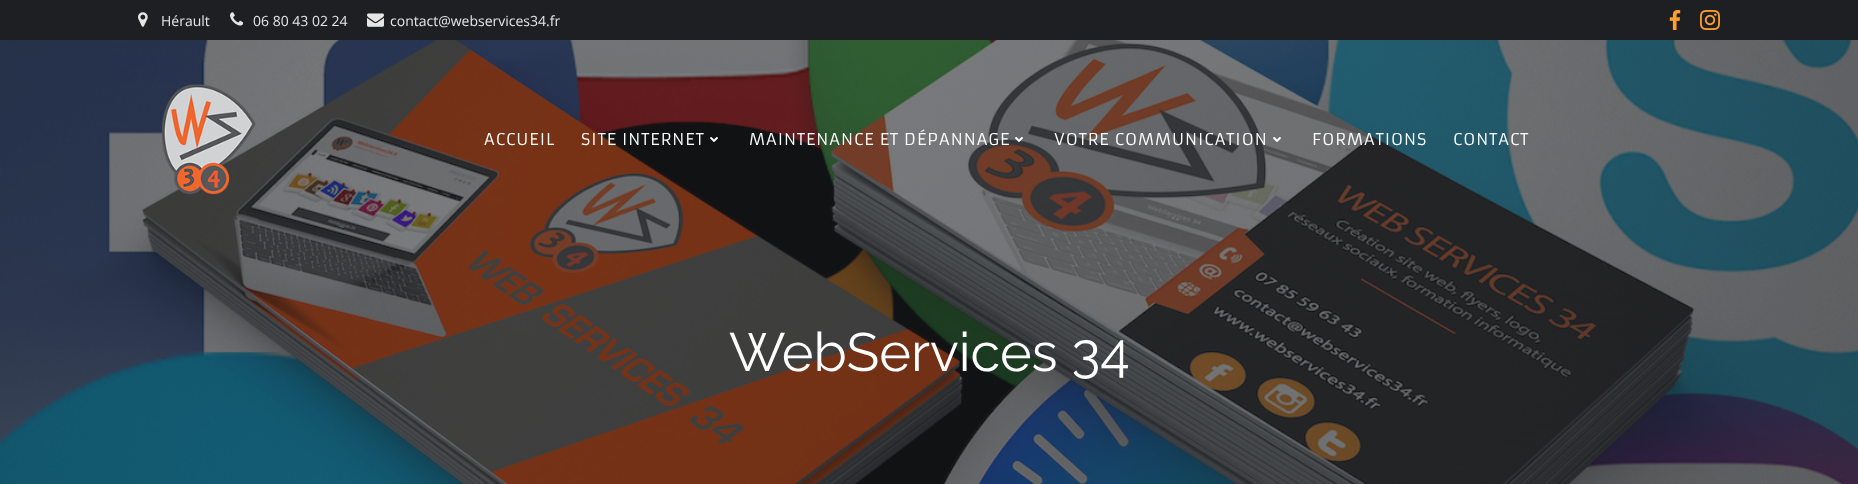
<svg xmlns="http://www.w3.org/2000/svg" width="1858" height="484">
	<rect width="100%" height="100%" fill="#FFFFFF" />
	<rect x="0" y="0" width="1858" height="40" fill="#1E1F22" />
	<image x="138" y="12" width="10" height="15" href="assets/img1.png" />
	<text x="161" y="26" font-family="Open Sans" font-size="14" fill="#E6E6E6">Hérault</text>
	<image x="230" y="12" width="13" height="14" href="assets/img2.png" />
	<text x="253" y="26" font-family="Open Sans" font-size="14" fill="#E6E6E6">06 80 43 02 24</text>
	<image x="367" y="13" width="17" height="14" href="assets/img3.png" />
	<text x="390" y="26" font-family="Open Sans" font-size="14" fill="#E6E6E6">contact@webservices34.fr</text>
	<image x="1669" y="10" width="12" height="20" href="assets/img4.png" />
	<image x="1700" y="10" width="20" height="20" href="assets/img5.png" />
	<image x="0" y="40" width="1858" height="444" href="assets/img10.png" />
	<image x="161" y="84" width="95" height="111" href="assets/img6.png" />
	<g font-family="Armata" font-size="16" letter-spacing="1" fill="#FFFFFF">
		<text x="484" y="145">ACCUEIL</text>
		<text x="581" y="145">SITE INTERNET</text>
	</g>
	<image x="710" y="137" width="8" height="5" href="assets/img7.png" />
	<text x="749" y="145" font-family="Armata" font-size="16" letter-spacing="1" fill="#FFFFFF">MAINTENANCE ET DÉPANNAGE</text>
	<image x="1015" y="137" width="8" height="5" href="assets/img8.png" />
	<text x="1054" y="145" font-family="Armata" font-size="16" letter-spacing="1" fill="#FFFFFF">VOTRE COMMUNICATION</text>
	<image x="1273" y="137" width="8" height="5" href="assets/img9.png" />
	<g font-family="Armata" font-size="16" letter-spacing="1" fill="#FFFFFF">
		<text x="1312" y="145">FORMATIONS</text>
		<text x="1453" y="145">CONTACT</text>
	</g>
	<text x="729" y="371" font-family="Raleway" font-size="54" fill="#FFFFFF">WebServices 34</text>
</svg>
